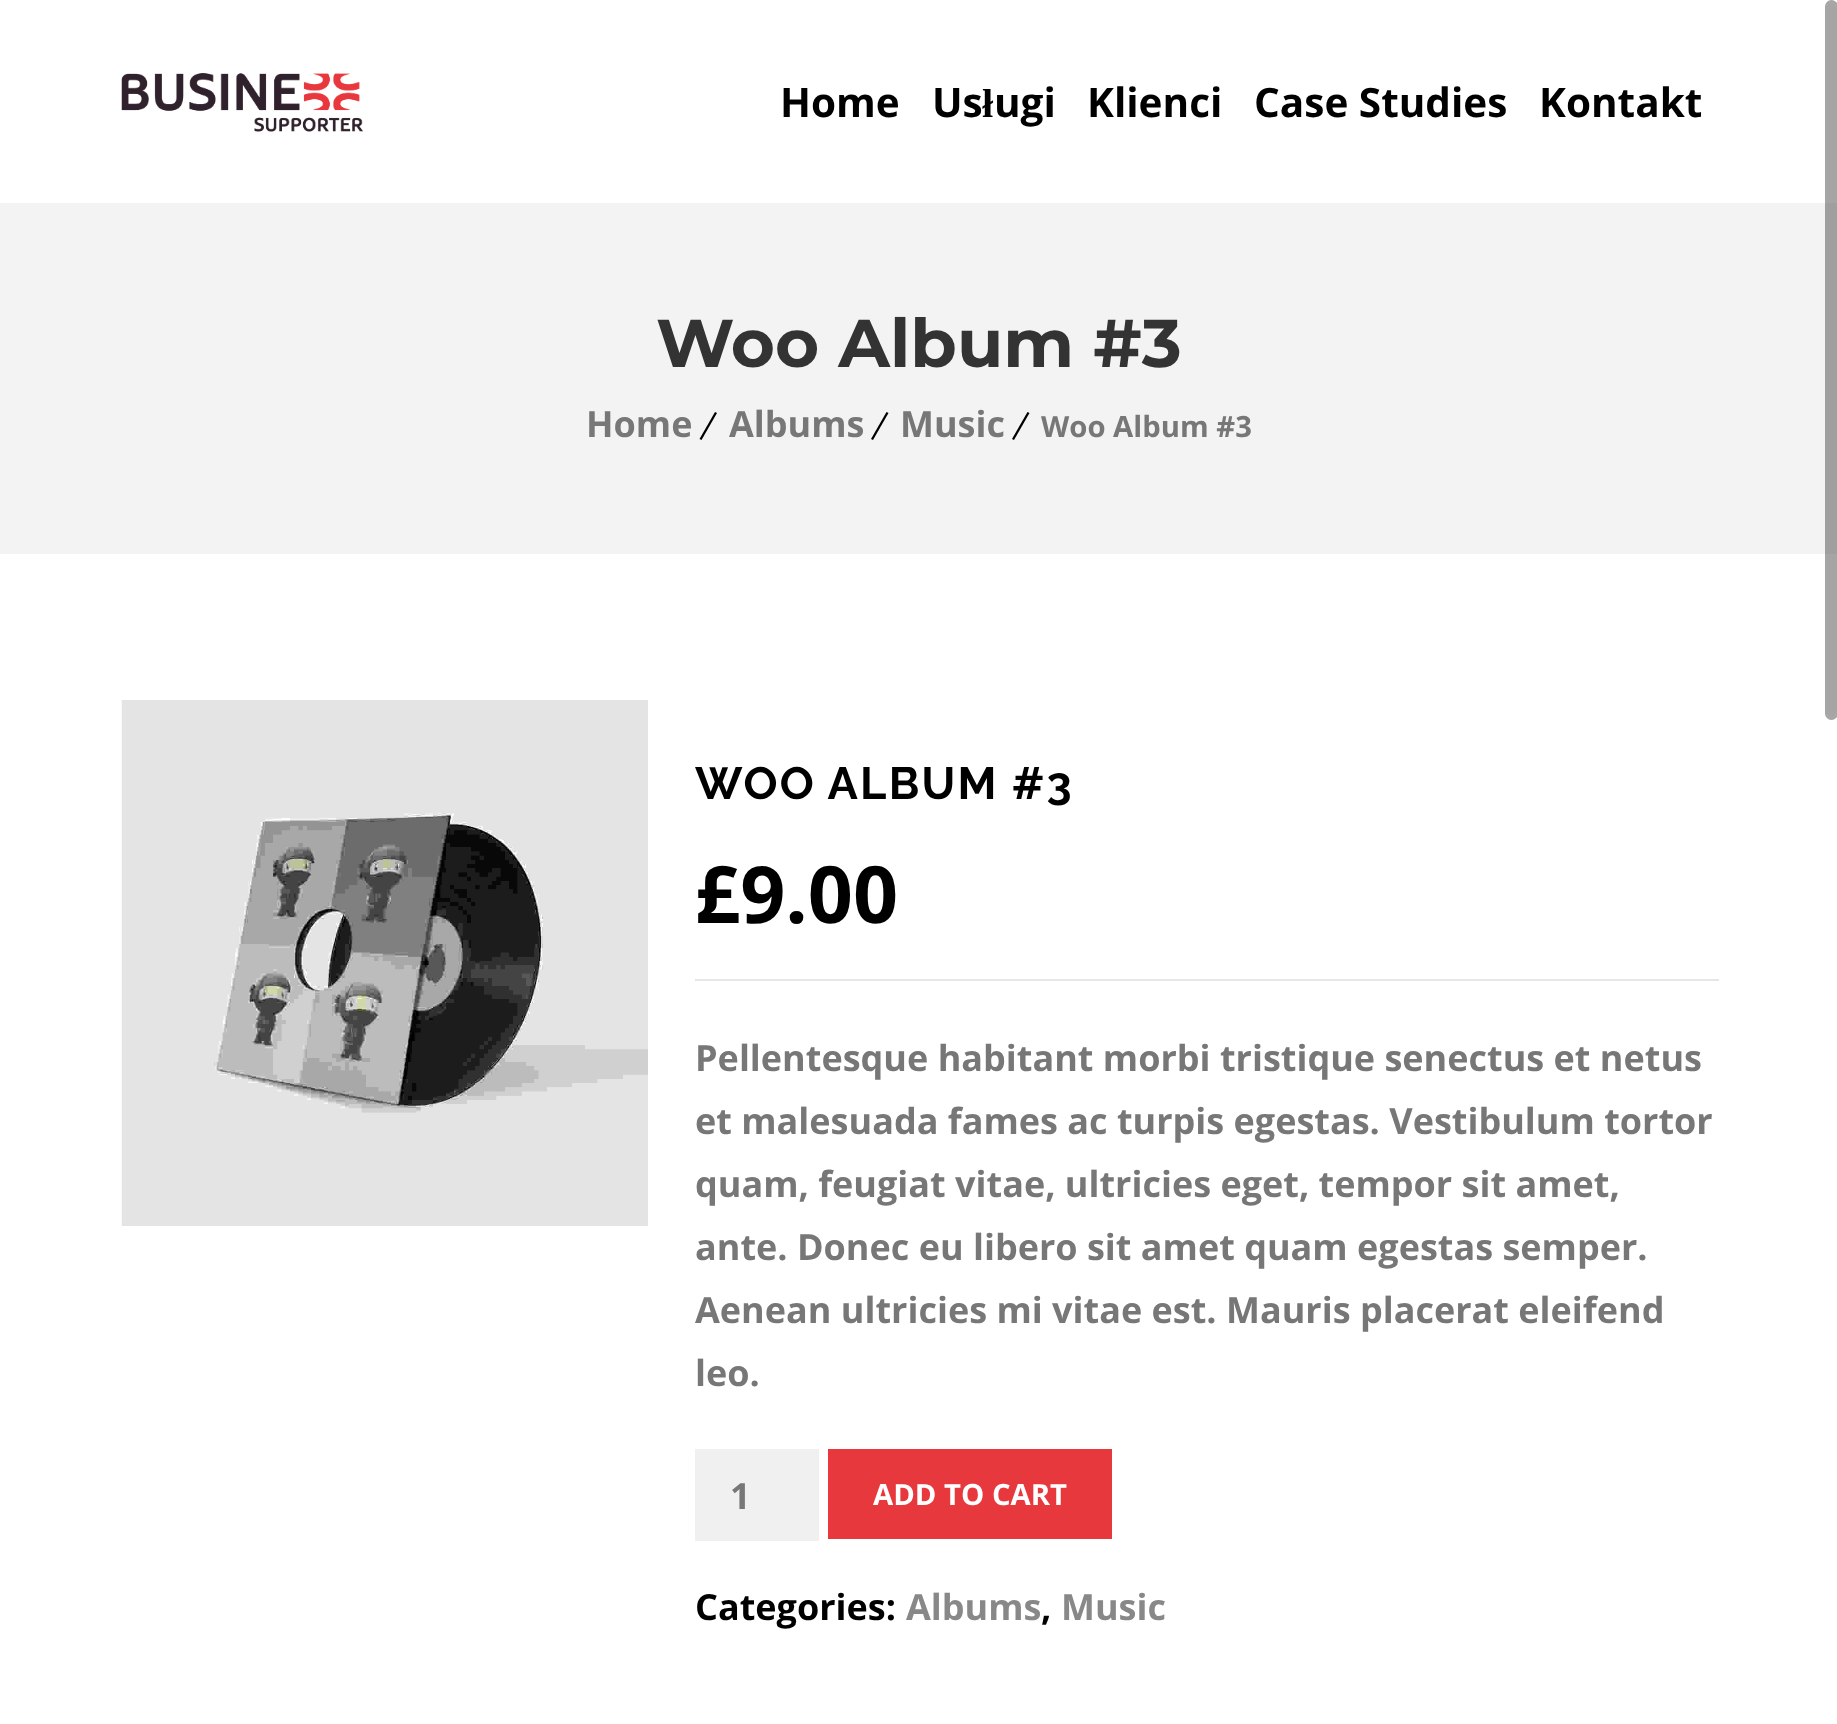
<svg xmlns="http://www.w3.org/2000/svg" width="1837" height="1724">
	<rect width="100%" height="100%" fill="#FFFFFF" />
	<image x="121" y="72" width="242" height="60" href="assets/img1.png" />
	<g font-family="Open Sans" font-size="40.5" font-weight="700" fill="#000000">
		<text x="780" y="117">Home</text>
		<text x="932" y="117">Us</text>
	</g>
	<text x="982" y="117" font-family="Liberation Serif" font-size="40.5" font-weight="700" fill="#000000">ł</text>
	<g font-family="Open Sans" font-size="40.5" font-weight="700" fill="#000000">
		<text x="994" y="117">ugi</text>
		<text x="1087" y="117">Klienci</text>
		<text x="1254" y="117">Case Studies</text>
		<text x="1539" y="117">Kontakt</text>
	</g>
	<rect x="0" y="203" width="1837" height="351" fill="#F3F3F3" />
	<text x="656" y="367" font-family="Montserrat" font-size="67.5" font-weight="700" fill="#333333">Woo Album #3</text>
	<text x="586" y="437" font-family="Open Sans" font-size="36" font-weight="700" fill="#777777">Home</text>
	<path d="M715 412L717 413L701.5 440L699.5 439Z" fill="#000000" />
	<text x="729" y="437" font-family="Open Sans" font-size="36" font-weight="700" fill="#777777">Albums</text>
	<path d="M886.5 412L888.5 413L873 440L871 439Z" fill="#000000" />
	<text x="900" y="437" font-family="Open Sans" font-size="36" font-weight="700" fill="#777777">Music</text>
	<path d="M1027.5 412L1029.5 413L1014 440L1012 439Z" fill="#000000" />
	<text x="1041" y="437" font-family="Open Sans" font-size="29.25" font-weight="700" fill="#777777">Woo Album #3</text>
	<image x="121" y="700" width="527" height="526" href="assets/img2.png" />
	<text x="695" y="799" font-family="Raleway" font-size="45" font-weight="700" letter-spacing="2.25" fill="#000000">WOO ALBUM #3</text>
	<rect x="695" y="979" width="1024" height="2" fill="#E6E6E6" />
	<text x="695" y="923" font-family="Open Sans" font-size="79" font-weight="700" fill="#000000">£9.00</text>
	<g font-family="Open Sans" font-size="36" font-weight="700" fill="#777777">
		<text x="695" y="1071">Pellentesque habitant morbi tristique senectus et netus</text>
		<text x="695" y="1134">et malesuada fames ac turpis egestas. Vestibulum tortor</text>
		<text x="695" y="1197">quam, feugiat vitae, ultricies eget, tempor sit amet,</text>
		<text x="695" y="1260">ante. Donec eu libero sit amet quam egestas semper.</text>
		<text x="695" y="1323">Aenean ultricies mi vitae est. Mauris placerat eleifend</text>
		<text x="695" y="1386">leo.</text>
	</g>
	<rect x="695" y="1449" width="124" height="92" fill="#F0F0F0" />
	<text x="730" y="1509" font-family="Open Sans" font-size="36" font-weight="700" fill="#777777">1</text>
	<rect x="828" y="1449" width="284" height="90" fill="#E7393D" />
	<text x="873" y="1505" font-family="Open Sans" font-size="29.25" font-weight="700" fill="#FFFFFF">ADD TO CART</text>
	<text x="695" y="1620" font-family="Open Sans" font-size="36" font-weight="700" fill="#000000">Categories:</text>
	<text x="906" y="1620" font-family="Open Sans" font-size="36" font-weight="700" fill="#888888">Albums</text>
	<text x="1041" y="1620" font-family="Open Sans" font-size="36" font-weight="700" fill="#000000">,</text>
	<text x="1061" y="1620" font-family="Open Sans" font-size="36" font-weight="700" fill="#888888">Music</text>
	<rect x="1827" y="2" width="9" height="716" rx="4.5" fill="#424242" fill-opacity="0.48" />
	<rect x="1826" y="1" width="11" height="718" rx="5.5" fill="none" stroke="#424242" stroke-opacity="0.48" stroke-width="2" />
</svg>
